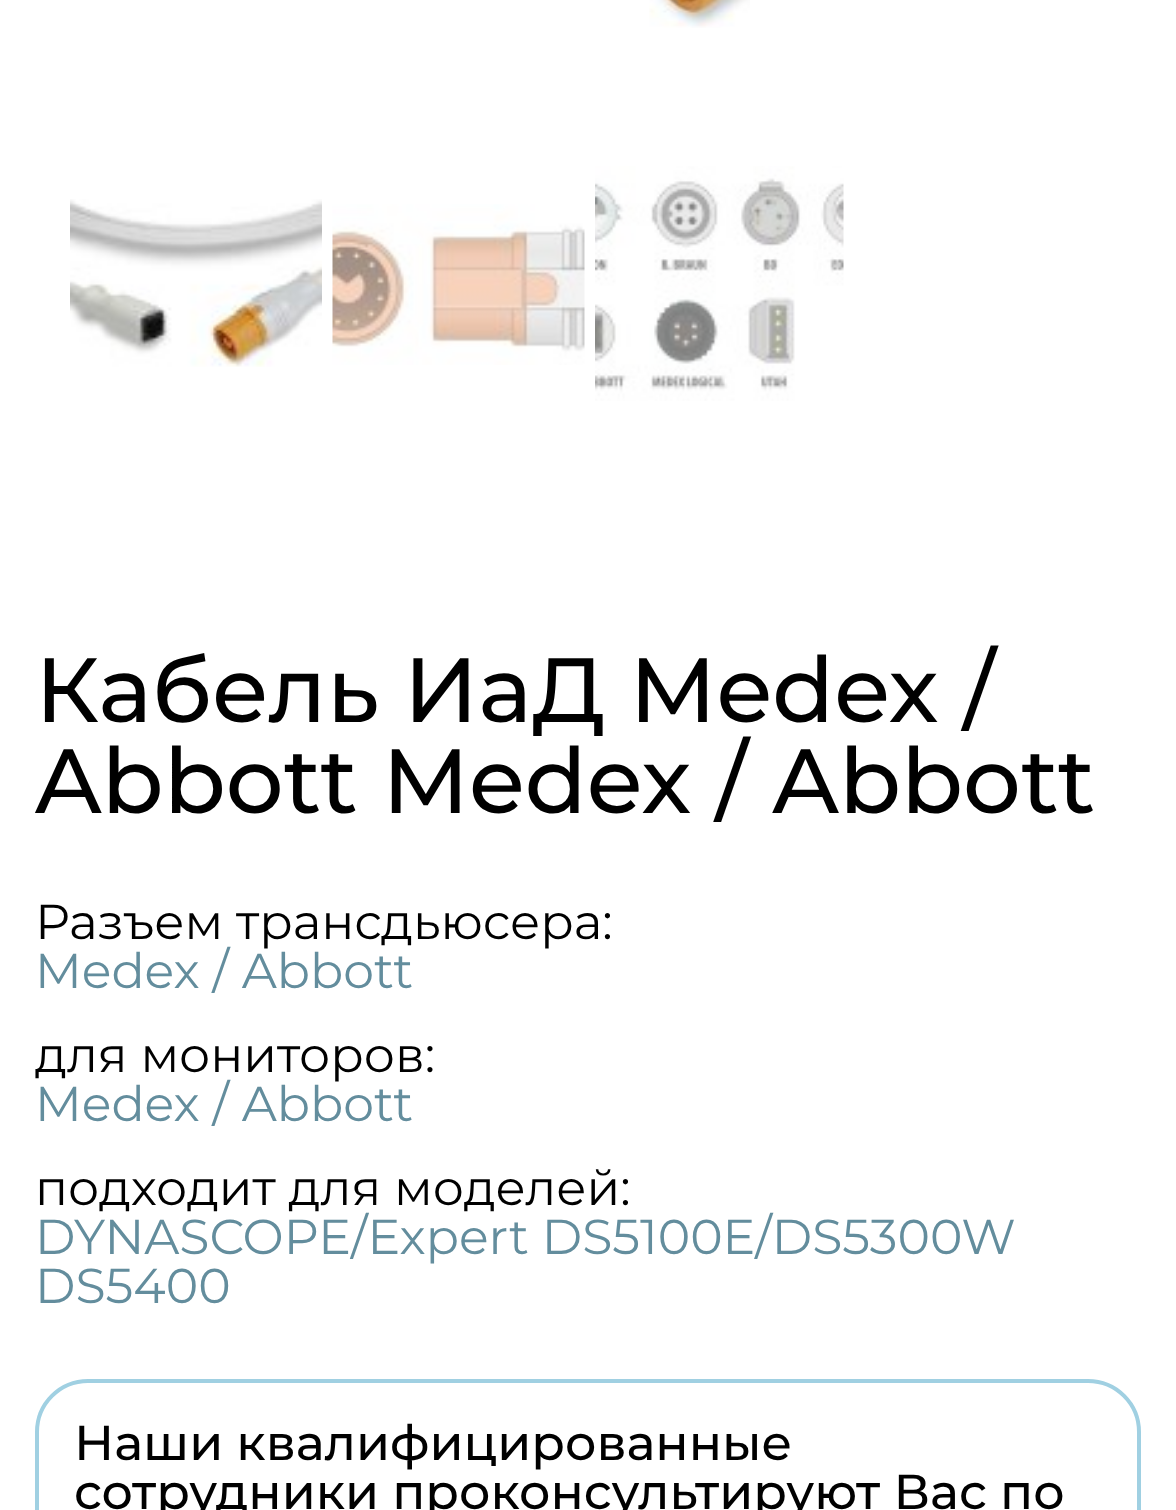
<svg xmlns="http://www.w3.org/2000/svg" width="1176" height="1510">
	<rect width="100%" height="100%" fill="#FFFFFF" />
	<image x="649" y="0" width="101" height="28" href="assets/img1.png" />
	<image x="70" y="199" width="252" height="168" href="assets/img2.png" />
	<image x="332" y="204" width="253" height="161" href="assets/img3.png" />
	<image x="595" y="166" width="249" height="235" href="assets/img4.png" />
	<g font-family="Montserrat" font-size="91" font-weight="500" fill="#000000">
		<text x="35" y="722">Кабель ИаД Medex /</text>
		<text x="35" y="813">Abbott Medex / Abbott</text>
	</g>
	<text x="35" y="939" font-family="Montserrat" font-size="49" fill="#000000">Разъем трансдьюсера:</text>
	<text x="35" y="988" font-family="Montserrat" font-size="49" fill="#638D9D">Medex / Abbott</text>
	<text x="35" y="1072" font-family="Montserrat" font-size="49" fill="#000000">для мониторов:</text>
	<text x="35" y="1121" font-family="Montserrat" font-size="49" fill="#638D9D">Medex / Abbott</text>
	<text x="35" y="1205" font-family="Montserrat" font-size="49" fill="#000000">подходит для моделей:</text>
	<g font-family="Montserrat" font-size="49" fill="#638D9D">
		<text x="35" y="1254">DYNASCOPE/Expert DS5100E/DS5300W</text>
		<text x="35" y="1303">DS5400</text>
	</g>
	<rect x="37" y="1381" width="1102" height="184" rx="51" fill="none" stroke="#A0D0E2" stroke-width="4" />
	<g font-family="Montserrat" font-size="49" font-weight="500" fill="#000000">
		<text x="74" y="1460">Наши квалифицированные</text>
		<text x="74" y="1509">сотрудники проконсультируют Вас по</text>
	</g>
</svg>
